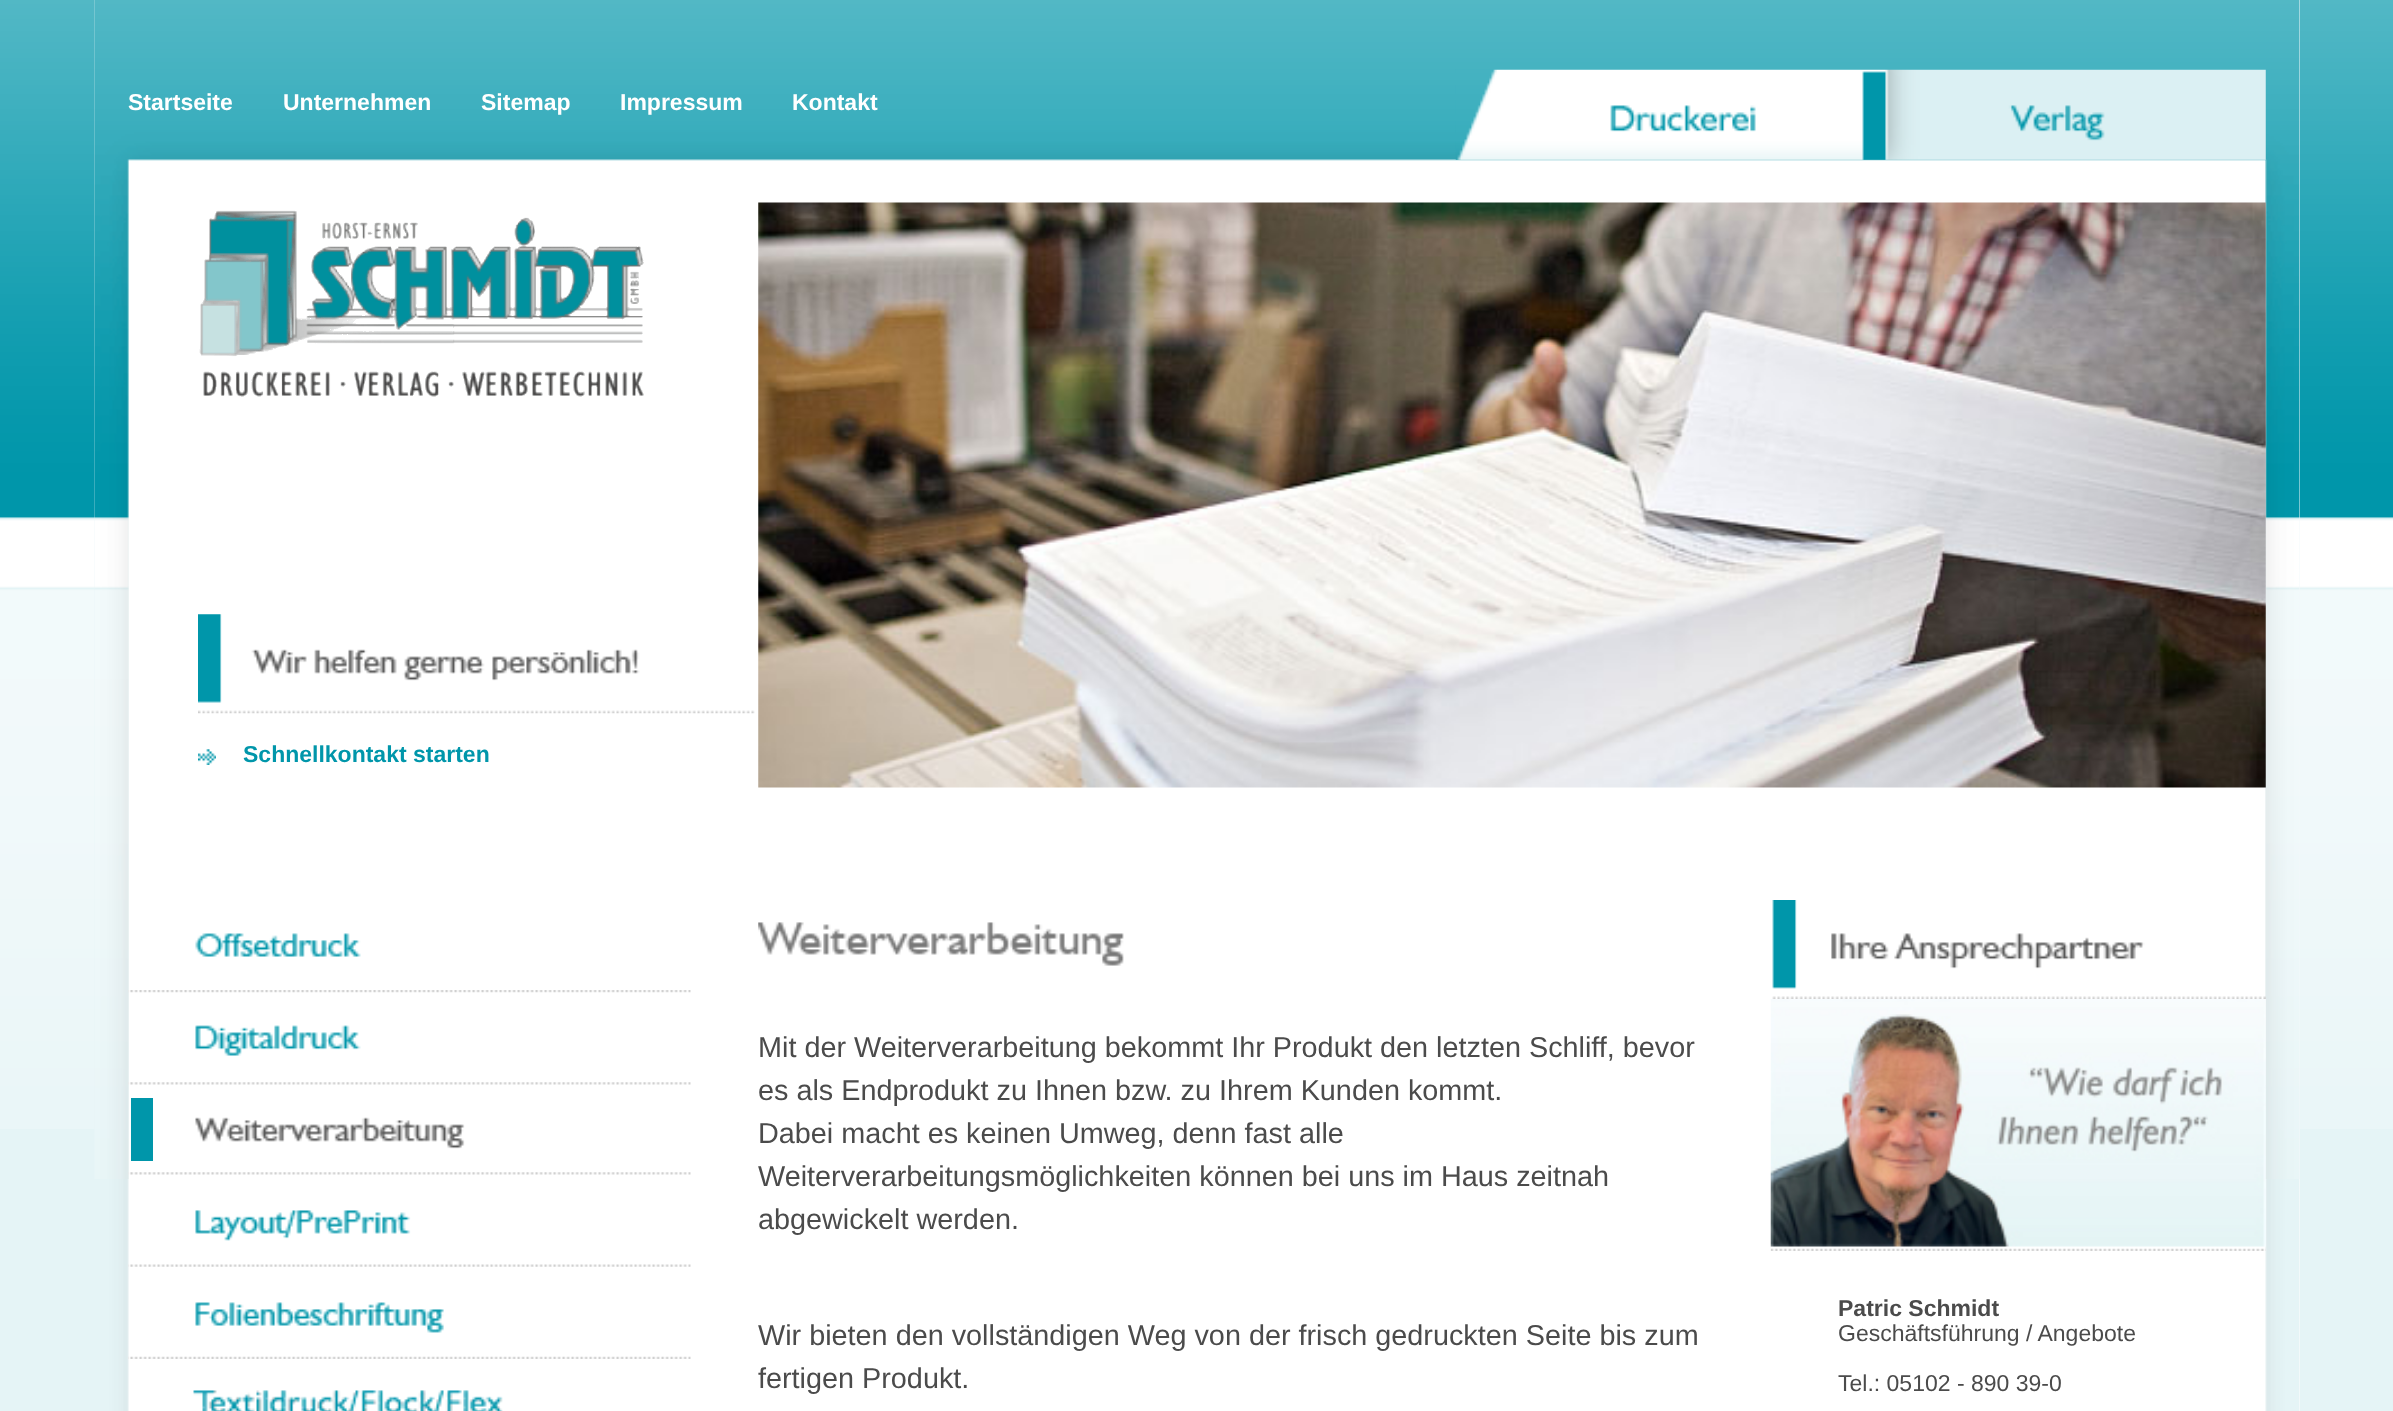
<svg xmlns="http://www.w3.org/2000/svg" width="2393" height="1411">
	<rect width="100%" height="100%" fill="#E5F4F6" />
	<image x="0" y="0" width="2393" height="1129" href="assets/img1.png" />
	<rect x="127" y="0" width="2173" height="1411" fill="#FFFFFF" />
	<image x="94" y="0" width="2206" height="1411" href="assets/img2.png" />
	<image x="94" y="0" width="2206" height="1179" href="assets/img3.png" />
	<g font-family="Liberation Sans" font-size="23" font-weight="700" fill="#FFFFFF">
		<text x="128" y="110">Startseite</text>
		<text x="283" y="110">Unternehmen</text>
		<text x="481" y="110">Sitemap</text>
		<text x="620" y="110">Impressum</text>
		<text x="792" y="110">Kontakt</text>
	</g>
	<image x="1455" y="69" width="811" height="91" href="assets/img4.png" />
	<image x="199" y="210" width="445" height="187" href="assets/img5.png" />
	<image x="758" y="202" width="1508" height="586" href="assets/img6.png" />
	<image x="198" y="614" width="557" height="100" href="assets/img7.png" />
	<image x="198" y="749" width="18" height="16" href="assets/img8.png" />
	<text x="243" y="762" font-family="Liberation Sans" font-size="23" font-weight="700" fill="#0096AA">Schnellkontakt starten</text>
	<image x="128" y="990" width="563" height="3" href="assets/img9.png" />
	<image x="195" y="933" width="166" height="24" href="assets/img10.png" />
	<image x="128" y="1082" width="563" height="3" href="assets/img11.png" />
	<image x="195" y="1025" width="166" height="31" href="assets/img12.png" />
	<image x="128" y="1172" width="563" height="3" href="assets/img13.png" />
	<rect x="131" y="1098" width="22" height="63" fill="#0096AA" />
	<image x="195" y="1117" width="270" height="32" href="assets/img14.png" />
	<image x="128" y="1264" width="563" height="3" href="assets/img15.png" />
	<image x="195" y="1210" width="216" height="31" href="assets/img16.png" />
	<image x="128" y="1356" width="563" height="3" href="assets/img17.png" />
	<image x="195" y="1302" width="249" height="31" href="assets/img18.png" />
	<image x="193" y="1390" width="310" height="21" href="assets/img19.png" />
	<image x="758" y="922" width="366" height="44" href="assets/img20.png" />
	<g font-family="Liberation Sans" font-size="28.8" fill="#4B4B4B">
		<text x="758" y="1057">Mit der Weiterverarbeitung bekommt Ihr Produkt den letzten Schliff, bevor</text>
		<text x="758" y="1100">es als Endprodukt zu Ihnen bzw. zu Ihrem Kunden kommt.</text>
		<text x="758" y="1143">Dabei macht es keinen Umweg, denn fast alle</text>
		<text x="758" y="1186">Weiterverarbeitungsmöglichkeiten können bei uns im Haus zeitnah</text>
		<text x="758" y="1229">abgewickelt werden.</text>
		<text x="758" y="1345">Wir bieten den vollständigen Weg von der frisch gedruckten Seite bis zum</text>
		<text x="758" y="1388">fertigen Produkt.</text>
	</g>
	<image x="1772" y="900" width="494" height="99" href="assets/img21.png" />
	<image x="1770" y="1248" width="496" height="3" href="assets/img22.png" />
	<image x="1770" y="999" width="496" height="248" href="assets/img23.png" />
	<text x="1838" y="1316" font-family="Liberation Sans" font-size="23" font-weight="700" fill="#4B4B4B">Patric Schmidt</text>
	<g font-family="Liberation Sans" font-size="23" fill="#4B4B4B">
		<text x="1838" y="1341">Geschäftsführung / Angebote</text>
		<text x="1838" y="1391">Tel.: 05102 - 890 39-0</text>
	</g>
</svg>
